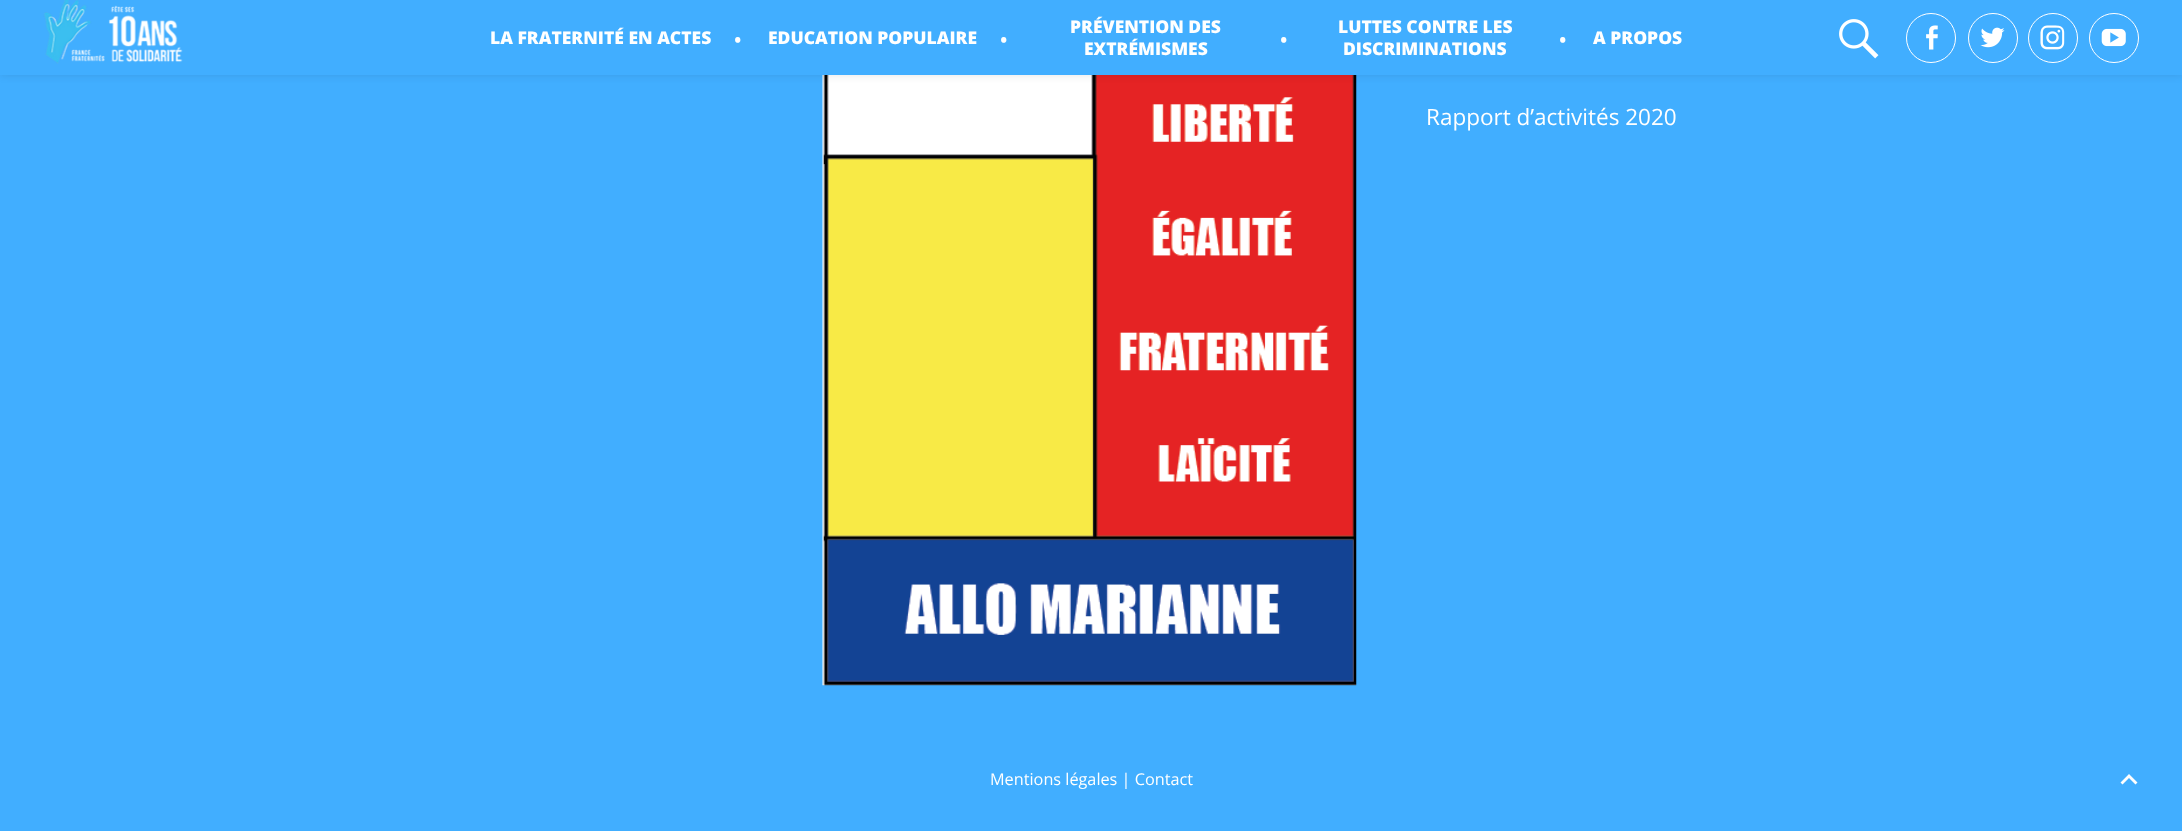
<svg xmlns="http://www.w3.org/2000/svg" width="2182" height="831">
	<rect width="100%" height="100%" fill="#41AEFF" />
	<image x="822" y="75" width="535" height="611" href="assets/img7.png" />
	<rect x="0" y="0" width="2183" height="75" fill="#000000" fill-opacity="0.1" filter="blur(4.5px)" />
	<rect x="0" y="0" width="2182" height="75" fill="#41AEFF" />
	<image x="43" y="0" width="140" height="64" href="assets/img1.png" />
	<text x="490" y="44" font-family="Open Sans" font-size="17.5" font-weight="800" fill="#FFFFFF">LA FRATERNITÉ EN ACTES</text>
	<text x="733" y="49" font-family="Open Sans" font-size="25" fill="#FFFFFF">•</text>
	<text x="768" y="44" font-family="Open Sans" font-size="17.5" font-weight="800" fill="#FFFFFF">EDUCATION POPULAIRE</text>
	<text x="999" y="49" font-family="Open Sans" font-size="25" fill="#FFFFFF">•</text>
	<g font-family="Open Sans" font-size="17.5" font-weight="800" fill="#FFFFFF">
		<text x="1070" y="33">PRÉVENTION DES</text>
		<text x="1084" y="55">EXTRÉMISMES</text>
	</g>
	<text x="1279" y="49" font-family="Open Sans" font-size="25" fill="#FFFFFF">•</text>
	<g font-family="Open Sans" font-size="17.5" font-weight="800" fill="#FFFFFF">
		<text x="1338" y="33">LUTTES CONTRE LES</text>
		<text x="1343" y="55">DISCRIMINATIONS</text>
	</g>
	<text x="1558" y="49" font-family="Open Sans" font-size="25" fill="#FFFFFF">•</text>
	<text x="1593" y="44" font-family="Open Sans" font-size="17.5" font-weight="800" fill="#FFFFFF">A PROPOS</text>
	<image x="1839" y="19" width="40" height="40" href="assets/img2.png" />
	<circle cx="1931" cy="38" r="24.5" fill="none" stroke="#FFFFFF" />
	<image x="1926" y="25" width="12" height="25" href="assets/img3.png" />
	<circle cx="1993" cy="38" r="24.5" fill="none" stroke="#FFFFFF" />
	<image x="1980" y="27" width="25" height="21" href="assets/img4.png" />
	<circle cx="2053" cy="38" r="24.5" fill="none" stroke="#FFFFFF" />
	<image x="2040" y="25" width="25" height="25" href="assets/img5.png" />
	<circle cx="2114" cy="38" r="24.5" fill="none" stroke="#FFFFFF" />
	<image x="2101" y="28" width="25" height="19" href="assets/img6.png" />
	<text x="1426" y="125" font-family="Open Sans" font-size="22.5" fill="#FFFFFF">Rapport d’activités 2020</text>
	<text x="990" y="785" font-family="Open Sans" font-size="16.25" fill="#FFFFFF">Mentions légales | Contact</text>
	<path d="M2135.5 784.5L2129 778L2122.5 784.5L2120.5 782.5L2129 774L2137.5 782.5Z" fill="#FFFFFF" />
</svg>
